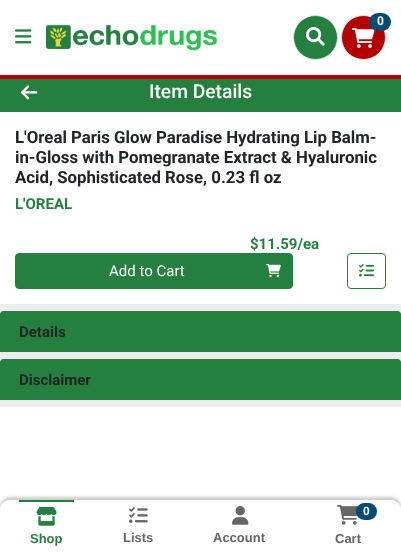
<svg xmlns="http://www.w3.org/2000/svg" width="401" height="553">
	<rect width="100%" height="100%" fill="#FFFFFF" />
	<rect x="0" y="75" width="401" height="4" fill="#B30000" />
	<circle cx="315.5" cy="37.5" r="22" fill="#25803F" stroke="#DEE2E6" />
	<image x="306" y="27" width="19" height="19" href="assets/img1.png" />
	<circle cx="363.5" cy="37.5" r="22" fill="#B30000" stroke="#DEE2E6" />
	<image x="352" y="28" width="23" height="20" href="assets/img2.png" />
	<rect x="369" y="13" width="22" height="18" rx="9" fill="#004B73" />
	<text x="377" y="25" font-family="Roboto" font-size="12" font-weight="700" fill="#FFFFFF">0</text>
	<image x="15" y="29" width="17" height="15" href="assets/img3.png" />
	<image x="46" y="24" width="171" height="27" href="assets/img4.png" />
	<rect x="0" y="79" width="401" height="33" fill="#25803F" />
	<image x="21" y="85" width="17" height="15" href="assets/img5.png" />
	<text x="149" y="98" font-family="Roboto" font-size="19.25" font-weight="500" fill="#FFFFFF">Item Details</text>
	<g font-family="Roboto" font-size="16.8" font-weight="700" fill="#212529">
		<text x="15" y="143">L'Oreal Paris Glow Paradise Hydrating Lip Balm-</text>
		<text x="15" y="163">in-Gloss with Pomegranate Extract &amp; Hyaluronic</text>
		<text x="15" y="183">Acid, Sophisticated Rose, 0.23 fl oz</text>
	</g>
	<g font-family="Roboto" font-size="15" font-weight="700" fill="#25803F">
		<text x="15" y="209">L'OREAL</text>
		<text x="250" y="249">$11.59/ea</text>
	</g>
	<rect x="15.5" y="253.5" width="277" height="35" rx="3.5" fill="#25803F" stroke="#25803F" />
	<text x="109" y="276" font-family="Roboto" font-size="15" fill="#FFFFFF">Add to Cart</text>
	<image x="266" y="264" width="15" height="14" href="assets/img6.png" />
	<rect x="347.5" y="253.5" width="38" height="35" rx="3.5" fill="none" stroke="#25803F" />
	<image x="359" y="264" width="15" height="13" href="assets/img7.png" />
	<rect x="0" y="304" width="401" height="7" fill="#ECEDEE" />
	<path d="M3 311H398C399.5 311 401 312.5 401 314V352H0V314C0 312.5 1.5 311 3 311Z" fill="#25803F" />
	<text x="19" y="337" font-family="Roboto" font-size="15" font-weight="700" fill="#212529">Details</text>
	<rect x="0" y="352" width="401" height="55" fill="#ECEDEE" />
	<rect x="0" y="359" width="401" height="3" fill="#FFFFFF" />
	<path d="M3 359H398C399.5 359 401 360.5 401 362V400H0V362C0 360.5 1.5 359 3 359Z" fill="#25803F" />
	<text x="19" y="385" font-family="Roboto" font-size="15" font-weight="700" fill="#212529">Disclaimer</text>
	<rect x="0" y="497" width="401" height="53" rx="10" fill="#000000" fill-opacity="0.2" filter="blur(1.5px)" />
	<path d="M10 500H391C396.5 500 401 504.5 401 510V553H0V510C0 504.5 4.5 500 10 500Z" fill="#FFFFFF" />
	<rect x="19" y="500" width="55" height="2" fill="#25803F" />
	<image x="36" y="507" width="21" height="19" href="assets/img8.png" />
	<text x="30" y="543" font-family="Liberation Sans" font-size="13" font-weight="700" fill="#25803F">Shop</text>
	<image x="129" y="507" width="19" height="16" href="assets/img9.png" />
	<text x="123" y="542" font-family="Liberation Sans" font-size="13" font-weight="700" fill="#666666">Lists</text>
	<image x="232" y="506" width="17" height="19" href="assets/img10.png" />
	<text x="213" y="542" font-family="Liberation Sans" font-size="13" font-weight="700" fill="#666666">Account</text>
	<image x="337" y="505" width="21" height="20" href="assets/img11.png" />
	<rect x="356" y="503" width="21" height="17" rx="8.5" fill="#004B73" />
	<text x="363" y="515" font-family="Liberation Sans" font-size="12" font-weight="700" fill="#FFFFFF">0</text>
	<text x="335" y="543" font-family="Liberation Sans" font-size="13" font-weight="700" fill="#666666">Cart</text>
</svg>
